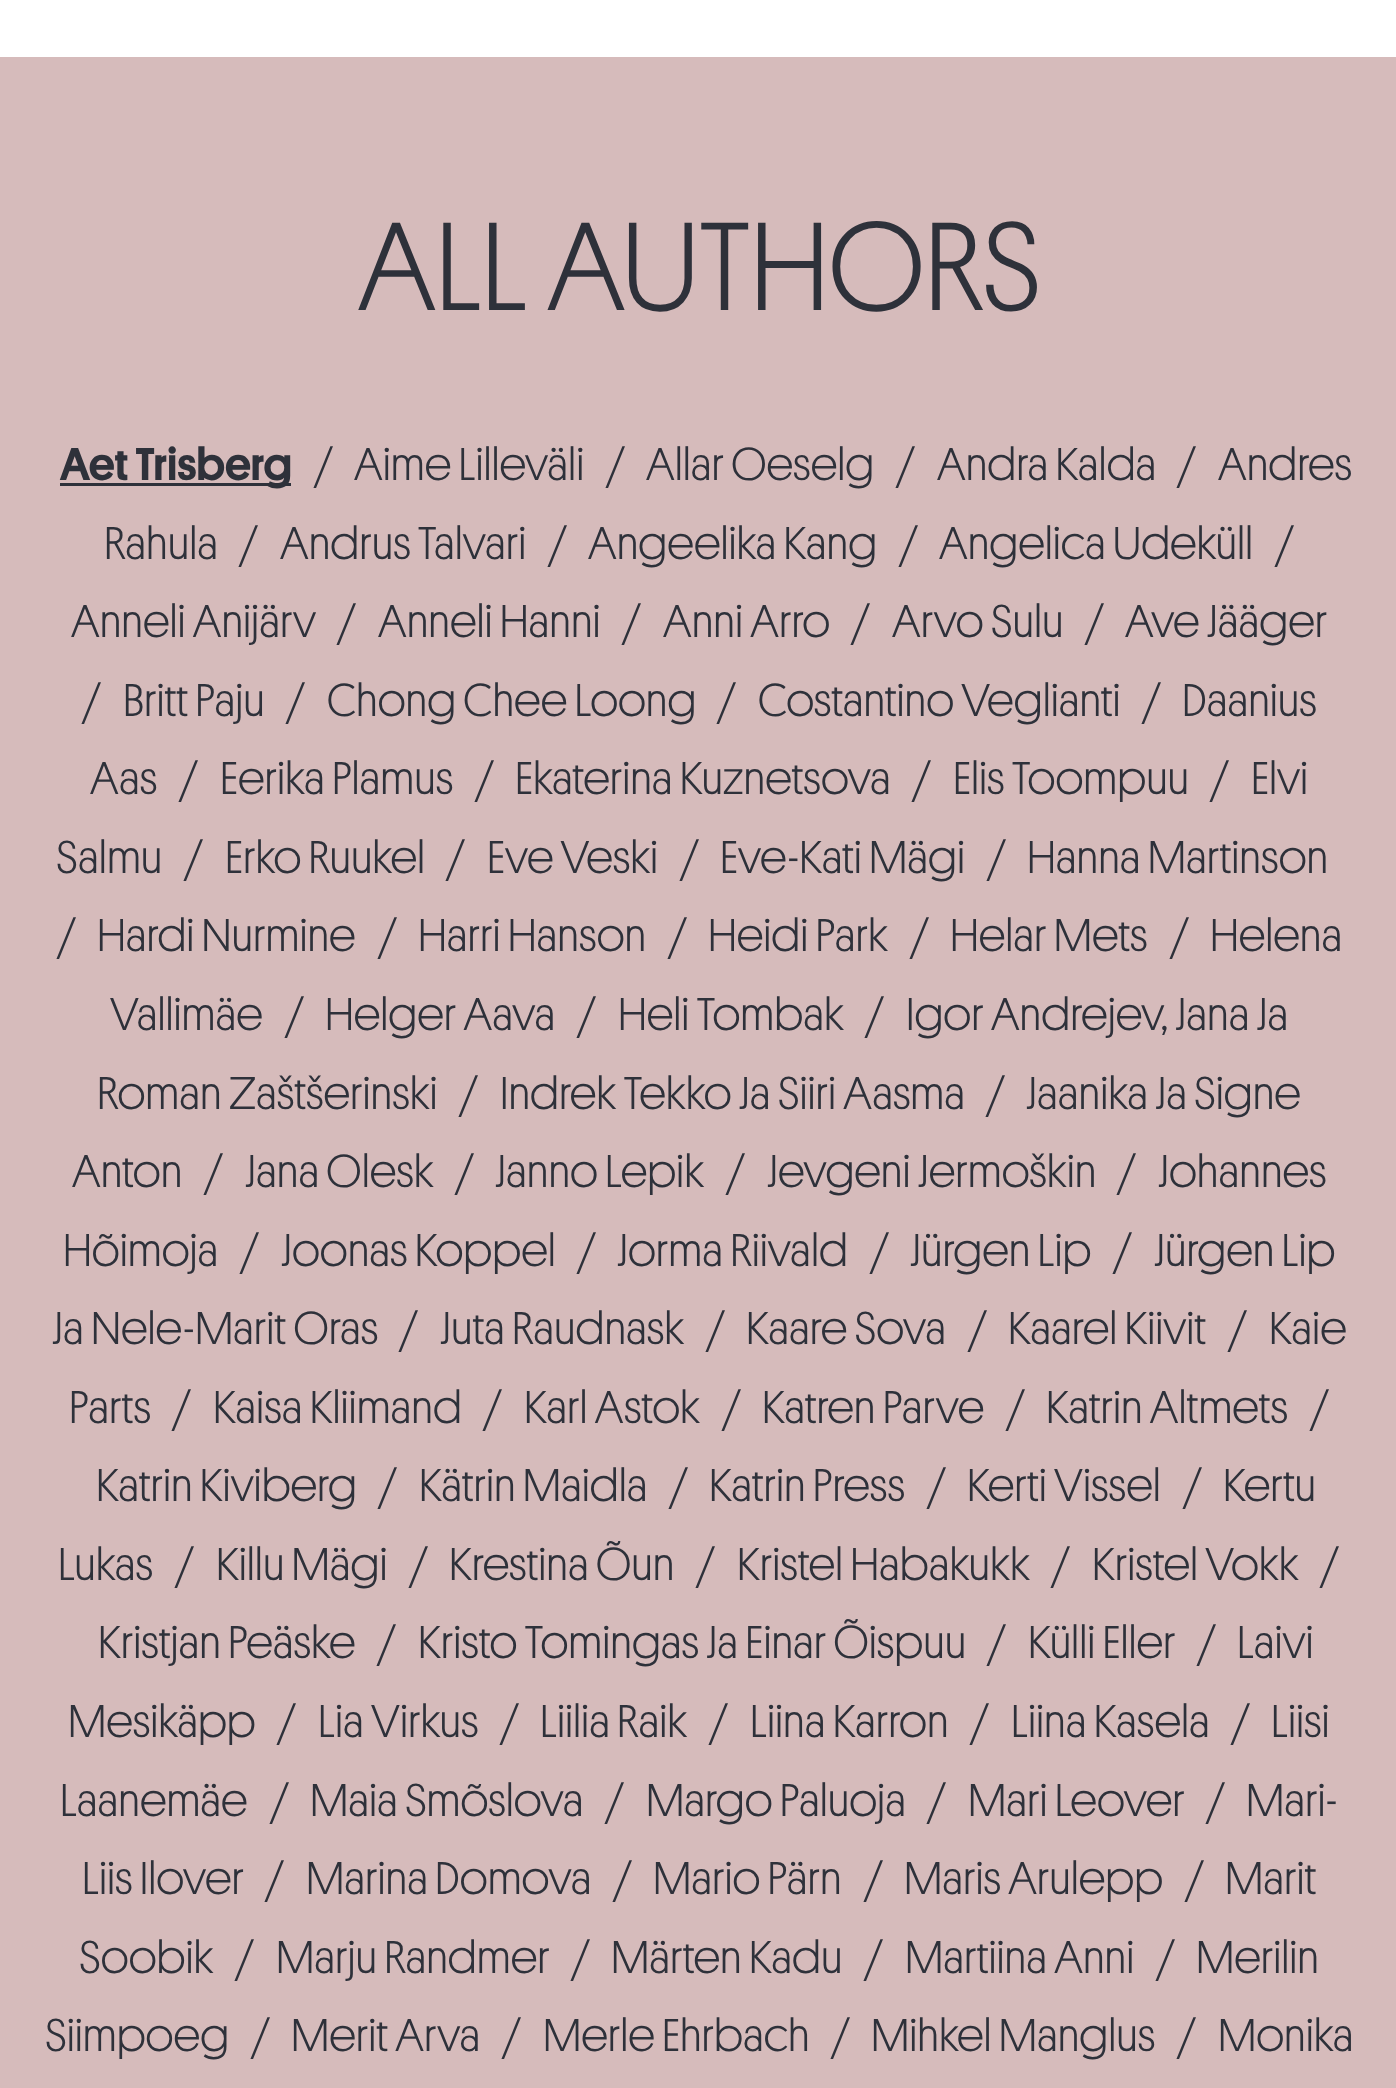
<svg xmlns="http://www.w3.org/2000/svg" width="1396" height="2088">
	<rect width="100%" height="100%" fill="#D6BBBB" />
	<rect x="0" y="0" width="1396" height="57" fill="#FFFFFF" />
	<text x="358" y="310" font-family="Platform" font-size="126" font-weight="300" fill="#2E313A">ALL AUTHORS</text>
	<rect x="60" y="483" width="231" height="3" fill="#2E313A" />
	<text x="60" y="480" font-family="Platform" font-size="46.25" font-weight="500" fill="#2E313A">Aet Trisberg</text>
	<g font-family="Platform" font-size="46.25" font-weight="300" fill="#2E313A">
		<text x="313" y="480">/</text>
		<text x="354" y="480">Aime Lilleväli</text>
		<text x="605" y="480">/</text>
		<text x="646" y="480">Allar Oeselg</text>
		<text x="895" y="480">/</text>
		<text x="937" y="480">Andra Kalda</text>
		<text x="1176" y="480">/</text>
		<text x="1218" y="480">Andres</text>
		<text x="104" y="559">Rahula</text>
		<text x="238" y="559">/</text>
		<text x="280" y="559">Andrus Talvari</text>
		<text x="547" y="559">/</text>
		<text x="588" y="559">Angeelika Kang</text>
		<text x="898" y="559">/</text>
		<text x="939" y="559">Angelica Udeküll</text>
		<text x="1274" y="559">/</text>
		<text x="71" y="637">Anneli Anijärv</text>
		<text x="336" y="637">/</text>
		<text x="378" y="637">Anneli Hanni</text>
		<text x="621" y="637">/</text>
		<text x="663" y="637">Anni Arro</text>
		<text x="850" y="637">/</text>
		<text x="892" y="637">Arvo Sulu</text>
		<text x="1084" y="637">/</text>
		<text x="1125" y="637">Ave Jääger</text>
		<text x="81" y="716">/</text>
		<text x="123" y="716">Britt Paju</text>
		<text x="285" y="716">/</text>
		<text x="327" y="716">Chong Chee Loong</text>
		<text x="716" y="716">/</text>
		<text x="758" y="716">Costantino Veglianti</text>
		<text x="1141" y="716">/</text>
		<text x="1182" y="716">Daanius</text>
		<text x="90" y="794">Aas</text>
		<text x="178" y="794">/</text>
		<text x="220" y="794">Eerika Plamus</text>
		<text x="474" y="794">/</text>
		<text x="515" y="794">Ekaterina Kuznetsova</text>
		<text x="911" y="794">/</text>
		<text x="953" y="794">Elis Toompuu</text>
		<text x="1209" y="794">/</text>
		<text x="1251" y="794">Elvi</text>
		<text x="56" y="873">Salmu</text>
		<text x="183" y="873">/</text>
		<text x="225" y="873">Erko Ruukel</text>
		<text x="445" y="873">/</text>
		<text x="487" y="873">Eve Veski</text>
		<text x="679" y="873">/</text>
		<text x="720" y="873">Eve-Kati Mägi</text>
		<text x="986" y="873">/</text>
		<text x="1027" y="873">Hanna Martinson</text>
		<text x="56" y="951">/</text>
		<text x="97" y="951">Hardi Nurmine</text>
		<text x="377" y="951">/</text>
		<text x="418" y="951">Harri Hanson</text>
		<text x="667" y="951">/</text>
		<text x="708" y="951">Heidi Park</text>
		<text x="909" y="951">/</text>
		<text x="950" y="951">Helar Mets</text>
		<text x="1169" y="951">/</text>
		<text x="1210" y="951">Helena</text>
		<text x="110" y="1030">Vallimäe</text>
		<text x="284" y="1030">/</text>
		<text x="325" y="1030">Helger Aava</text>
		<text x="576" y="1030">/</text>
		<text x="618" y="1030">Heli Tombak</text>
		<text x="864" y="1030">/</text>
		<text x="906" y="1030">Igor Andrejev, Jana Ja</text>
		<text x="97" y="1109">Roman Zaštšerinski</text>
		<text x="458" y="1109">/</text>
		<text x="500" y="1109">Indrek Tekko Ja Siiri Aasma</text>
		<text x="985" y="1109">/</text>
		<text x="1026" y="1109">Jaanika Ja Signe</text>
		<text x="72" y="1187">Anton</text>
		<text x="203" y="1187">/</text>
		<text x="245" y="1187">Jana Olesk</text>
		<text x="454" y="1187">/</text>
		<text x="495" y="1187">Janno Lepik</text>
		<text x="725" y="1187">/</text>
		<text x="767" y="1187">Jevgeni Jermoškin</text>
		<text x="1116" y="1187">/</text>
		<text x="1158" y="1187">Johannes</text>
		<text x="63" y="1266">Hõimoja</text>
		<text x="239" y="1266">/</text>
		<text x="281" y="1266">Joonas Koppel</text>
		<text x="576" y="1266">/</text>
		<text x="617" y="1266">Jorma Riivald</text>
		<text x="869" y="1266">/</text>
		<text x="910" y="1266">Jürgen Lip</text>
		<text x="1112" y="1266">/</text>
		<text x="1154" y="1266">Jürgen Lip</text>
		<text x="52" y="1344">Ja Nele-Marit Oras</text>
		<text x="398" y="1344">/</text>
		<text x="440" y="1344">Juta Raudnask</text>
		<text x="705" y="1344">/</text>
		<text x="746" y="1344">Kaare Sova</text>
		<text x="967" y="1344">/</text>
		<text x="1008" y="1344">Kaarel Kiivit</text>
		<text x="1227" y="1344">/</text>
		<text x="1269" y="1344">Kaie</text>
		<text x="69" y="1423">Parts</text>
		<text x="171" y="1423">/</text>
		<text x="213" y="1423">Kaisa Kliimand</text>
		<text x="482" y="1423">/</text>
		<text x="524" y="1423">Karl Astok</text>
		<text x="721" y="1423">/</text>
		<text x="762" y="1423">Katren Parve</text>
		<text x="1005" y="1423">/</text>
		<text x="1046" y="1423">Katrin Altmets</text>
		<text x="1309" y="1423">/</text>
		<text x="96" y="1501">Katrin Kiviberg</text>
		<text x="377" y="1501">/</text>
		<text x="419" y="1501">Kätrin Maidla</text>
		<text x="668" y="1501">/</text>
		<text x="709" y="1501">Katrin Press</text>
		<text x="926" y="1501">/</text>
		<text x="967" y="1501">Kerti Vissel</text>
		<text x="1182" y="1501">/</text>
		<text x="1223" y="1501">Kertu</text>
		<text x="58" y="1580">Lukas</text>
		<text x="174" y="1580">/</text>
		<text x="216" y="1580">Killu Mägi</text>
		<text x="408" y="1580">/</text>
		<text x="449" y="1580">Krestina Õun</text>
		<text x="695" y="1580">/</text>
		<text x="737" y="1580">Kristel Habakukk</text>
		<text x="1050" y="1580">/</text>
		<text x="1092" y="1580">Kristel Vokk</text>
		<text x="1319" y="1580">/</text>
		<text x="98" y="1658">Kristjan Peäske</text>
		<text x="376" y="1658">/</text>
		<text x="418" y="1658">Kristo Tomingas Ja Einar Õispuu</text>
		<text x="986" y="1658">/</text>
		<text x="1028" y="1658">Külli Eller</text>
		<text x="1196" y="1658">/</text>
		<text x="1237" y="1658">Laivi</text>
		<text x="68" y="1737">Mesikäpp</text>
		<text x="276" y="1737">/</text>
		<text x="318" y="1737">Lia Virkus</text>
		<text x="499" y="1737">/</text>
		<text x="540" y="1737">Liilia Raik</text>
		<text x="708" y="1737">/</text>
		<text x="750" y="1737">Liina Karron</text>
		<text x="969" y="1737">/</text>
		<text x="1011" y="1737">Liina Kasela</text>
		<text x="1230" y="1737">/</text>
		<text x="1271" y="1737">Liisi</text>
		<text x="60" y="1816">Laanemäe</text>
		<text x="269" y="1816">/</text>
		<text x="310" y="1816">Maia Smõslova</text>
		<text x="604" y="1816">/</text>
		<text x="646" y="1816">Margo Paluoja</text>
		<text x="926" y="1816">/</text>
		<text x="968" y="1816">Mari Leover</text>
		<text x="1205" y="1816">/</text>
		<text x="1246" y="1816">Mari-</text>
		<text x="82" y="1894">Liis Ilover</text>
		<text x="264" y="1894">/</text>
		<text x="306" y="1894">Marina Domova</text>
		<text x="612" y="1894">/</text>
		<text x="653" y="1894">Mario Pärn</text>
		<text x="863" y="1894">/</text>
		<text x="904" y="1894">Maris Arulepp</text>
		<text x="1184" y="1894">/</text>
		<text x="1225" y="1894">Marit</text>
		<text x="79" y="1973">Soobik</text>
		<text x="234" y="1973">/</text>
		<text x="276" y="1973">Marju Randmer</text>
		<text x="570" y="1973">/</text>
		<text x="611" y="1973">Märten Kadu</text>
		<text x="863" y="1973">/</text>
		<text x="905" y="1973">Martiina Anni</text>
		<text x="1155" y="1973">/</text>
		<text x="1196" y="1973">Merilin</text>
		<text x="45" y="2051">Siimpoeg</text>
		<text x="250" y="2051">/</text>
		<text x="291" y="2051">Merit Arva</text>
		<text x="501" y="2051">/</text>
		<text x="543" y="2051">Merle Ehrbach</text>
		<text x="830" y="2051">/</text>
		<text x="871" y="2051">Mihkel Manglus</text>
		<text x="1176" y="2051">/</text>
		<text x="1218" y="2051">Monika</text>
	</g>
</svg>
